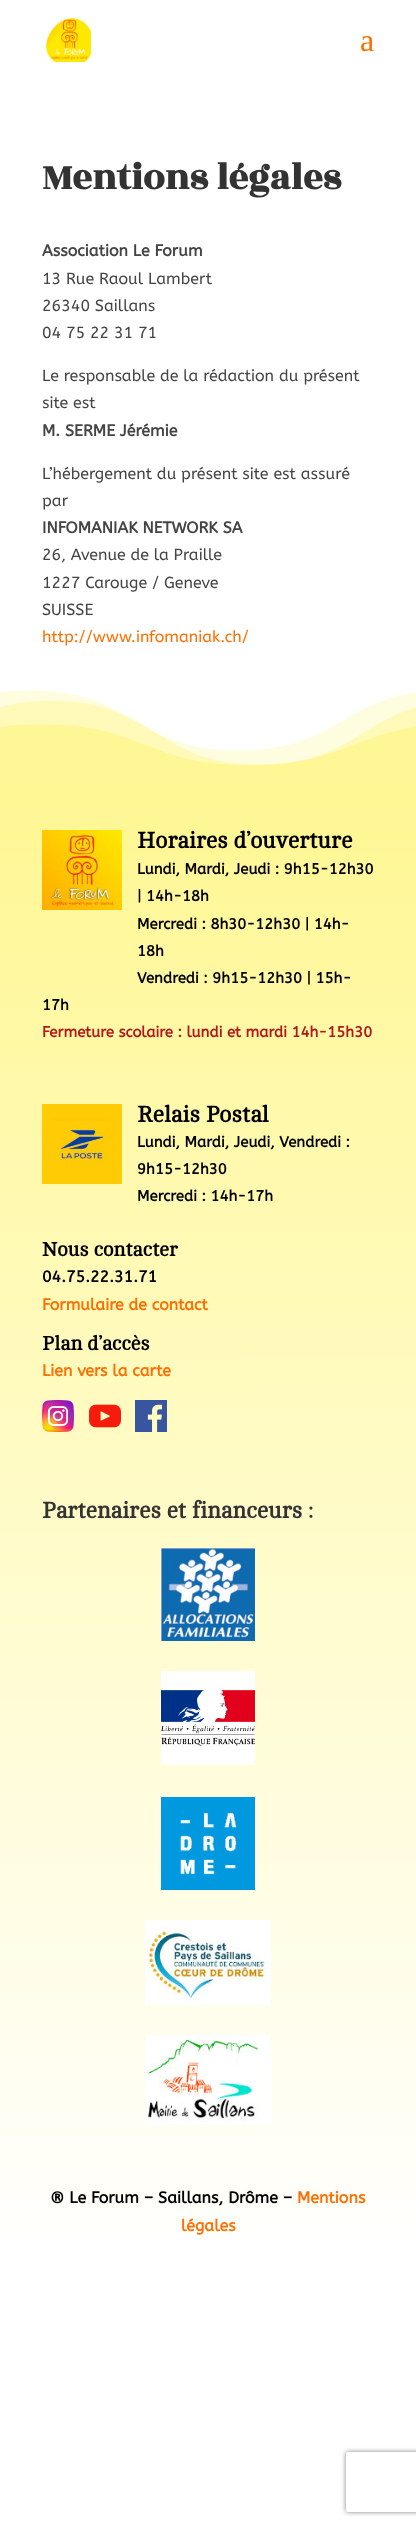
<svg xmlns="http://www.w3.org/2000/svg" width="416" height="2526">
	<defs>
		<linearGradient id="g1" gradientUnits="userSpaceOnUse" x1="208" y1="790" x2="208" y2="2269"><stop offset="0" stop-color="#FFF793" /><stop offset="1" stop-color="#FFFFFF" /></linearGradient>
		<clipPath id="clip1"><path d="M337 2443H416V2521H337ZM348 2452H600C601 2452 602 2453 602 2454V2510C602 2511 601 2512 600 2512H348C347 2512 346 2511 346 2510V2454C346 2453 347 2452 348 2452Z" clip-rule="evenodd" /></clipPath>
	</defs>
	<rect width="100%" height="100%" fill="#FFFFFF" />
	<image x="46" y="18" width="45" height="44" href="assets/img1.png" />
	<text x="360" y="51" font-family="Liberation Serif" font-size="32" fill="#FF6E00">a</text>
	<text x="42" y="189" font-family="Rozha One" font-size="38.5" font-weight="700" fill="#333333">Mentions légales</text>
	<text x="42" y="256" font-family="ABeeZee" font-size="16" font-weight="700" fill="#444444">Association Le Forum</text>
	<g font-family="ABeeZee" font-size="16" fill="#444444">
		<text x="42" y="284">13 Rue Raoul Lambert</text>
		<text x="42" y="311">26340 Saillans</text>
		<text x="42" y="338">04 75 22 31 71</text>
		<text x="42" y="381">Le responsable de la rédaction du présent</text>
		<text x="42" y="408">site est</text>
	</g>
	<text x="42" y="436" font-family="ABeeZee" font-size="16" font-weight="700" fill="#444444">M. SERME Jérémie</text>
	<g font-family="ABeeZee" font-size="16" fill="#444444">
		<text x="42" y="479">L’hébergement du présent site est assuré</text>
		<text x="42" y="506">par</text>
	</g>
	<text x="42" y="533" font-family="ABeeZee" font-size="16" font-weight="700" fill="#444444">INFOMANIAK NETWORK SA</text>
	<g font-family="ABeeZee" font-size="16" fill="#444444">
		<text x="42" y="560">26, Avenue de la Praille</text>
		<text x="42" y="588">1227 Carouge / Geneve</text>
		<text x="42" y="615">SUISSE</text>
	</g>
	<text x="42" y="642" font-family="ABeeZee" font-size="16" fill="#FF6E00">http://www.infomaniak.ch/</text>
	<image x="0" y="690" width="416" height="100" href="assets/img2.png" />
	<rect x="0" y="790" width="416" height="1445" fill="url(#g1)" />
	<image x="42" y="830" width="80" height="80" href="assets/img3.png" />
	<text x="137" y="848" font-family="Cambo" font-size="23" font-weight="700" fill="#000000">Horaires d’ouverture</text>
	<g font-family="ABeeZee" font-size="15" font-weight="700" fill="#000000">
		<text x="137" y="874">Lundi, Mardi, Jeudi : 9h15-12h30</text>
		<text x="137" y="901">| 14h-18h</text>
		<text x="137" y="929">Mercredi : 8h30-12h30 | 14h-</text>
		<text x="137" y="956">18h</text>
		<text x="137" y="983">Vendredi : 9h15-12h30 | 15h-</text>
		<text x="42" y="1010">17h</text>
	</g>
	<text x="42" y="1037" font-family="ABeeZee" font-size="15" font-weight="700" fill="#B2171C">Fermeture scolaire : lundi et mardi 14h-15h30</text>
	<image x="42" y="1104" width="80" height="80" href="assets/img4.png" />
	<text x="137" y="1122" font-family="Cambo" font-size="23" font-weight="700" fill="#000000">Relais Postal</text>
	<g font-family="ABeeZee" font-size="15" font-weight="700" fill="#000000">
		<text x="137" y="1147">Lundi, Mardi, Jeudi, Vendredi :</text>
		<text x="137" y="1174">9h15-12h30</text>
		<text x="137" y="1201">Mercredi : 14h-17h</text>
	</g>
	<text x="42" y="1256" font-family="Cambo" font-size="20" font-weight="700" fill="#000000">Nous contacter</text>
	<text x="42" y="1282" font-family="ABeeZee" font-size="16" font-weight="700" fill="#000000">04.75.22.31.71</text>
	<text x="42" y="1310" font-family="ABeeZee" font-size="16" font-weight="700" fill="#FF6E00">Formulaire de contact</text>
	<text x="42" y="1350" font-family="Cambo" font-size="20" font-weight="700" fill="#000000">Plan d’accès</text>
	<text x="42" y="1376" font-family="ABeeZee" font-size="16" font-weight="700" fill="#FF6E00">Lien vers la carte</text>
	<image x="42" y="1400" width="32" height="32" href="assets/img5.png" />
	<image x="89" y="1404" width="32" height="24" href="assets/img6.png" />
	<image x="135" y="1400" width="32" height="32" href="assets/img7.png" />
	<text x="42" y="1518" font-family="Cambo" font-size="23" font-weight="700" fill="#333333">Partenaires et financeurs :</text>
	<image x="161" y="1548" width="94" height="93" href="assets/img8.png" />
	<image x="161" y="1671" width="94" height="94" href="assets/img9.png" />
	<image x="161" y="1797" width="94" height="93" href="assets/img10.png" />
	<image x="145" y="1920" width="126" height="85" href="assets/img11.png" />
	<image x="145" y="2035" width="126" height="89" href="assets/img12.png" />
	<text x="50" y="2203" font-family="ABeeZee" font-size="16" font-weight="700" fill="#000000">® Le Forum – Saillans, Drôme –</text>
	<g font-family="ABeeZee" font-size="16" font-weight="700" fill="#FF6E00">
		<text x="297" y="2203">Mentions</text>
		<text x="181" y="2231">légales</text>
	</g>
	<g clip-path="url(#clip1)">
		<rect x="346" y="2452" width="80" height="60" rx="2" fill="#808080" filter="blur(2.5px)" />
	</g>
</svg>
